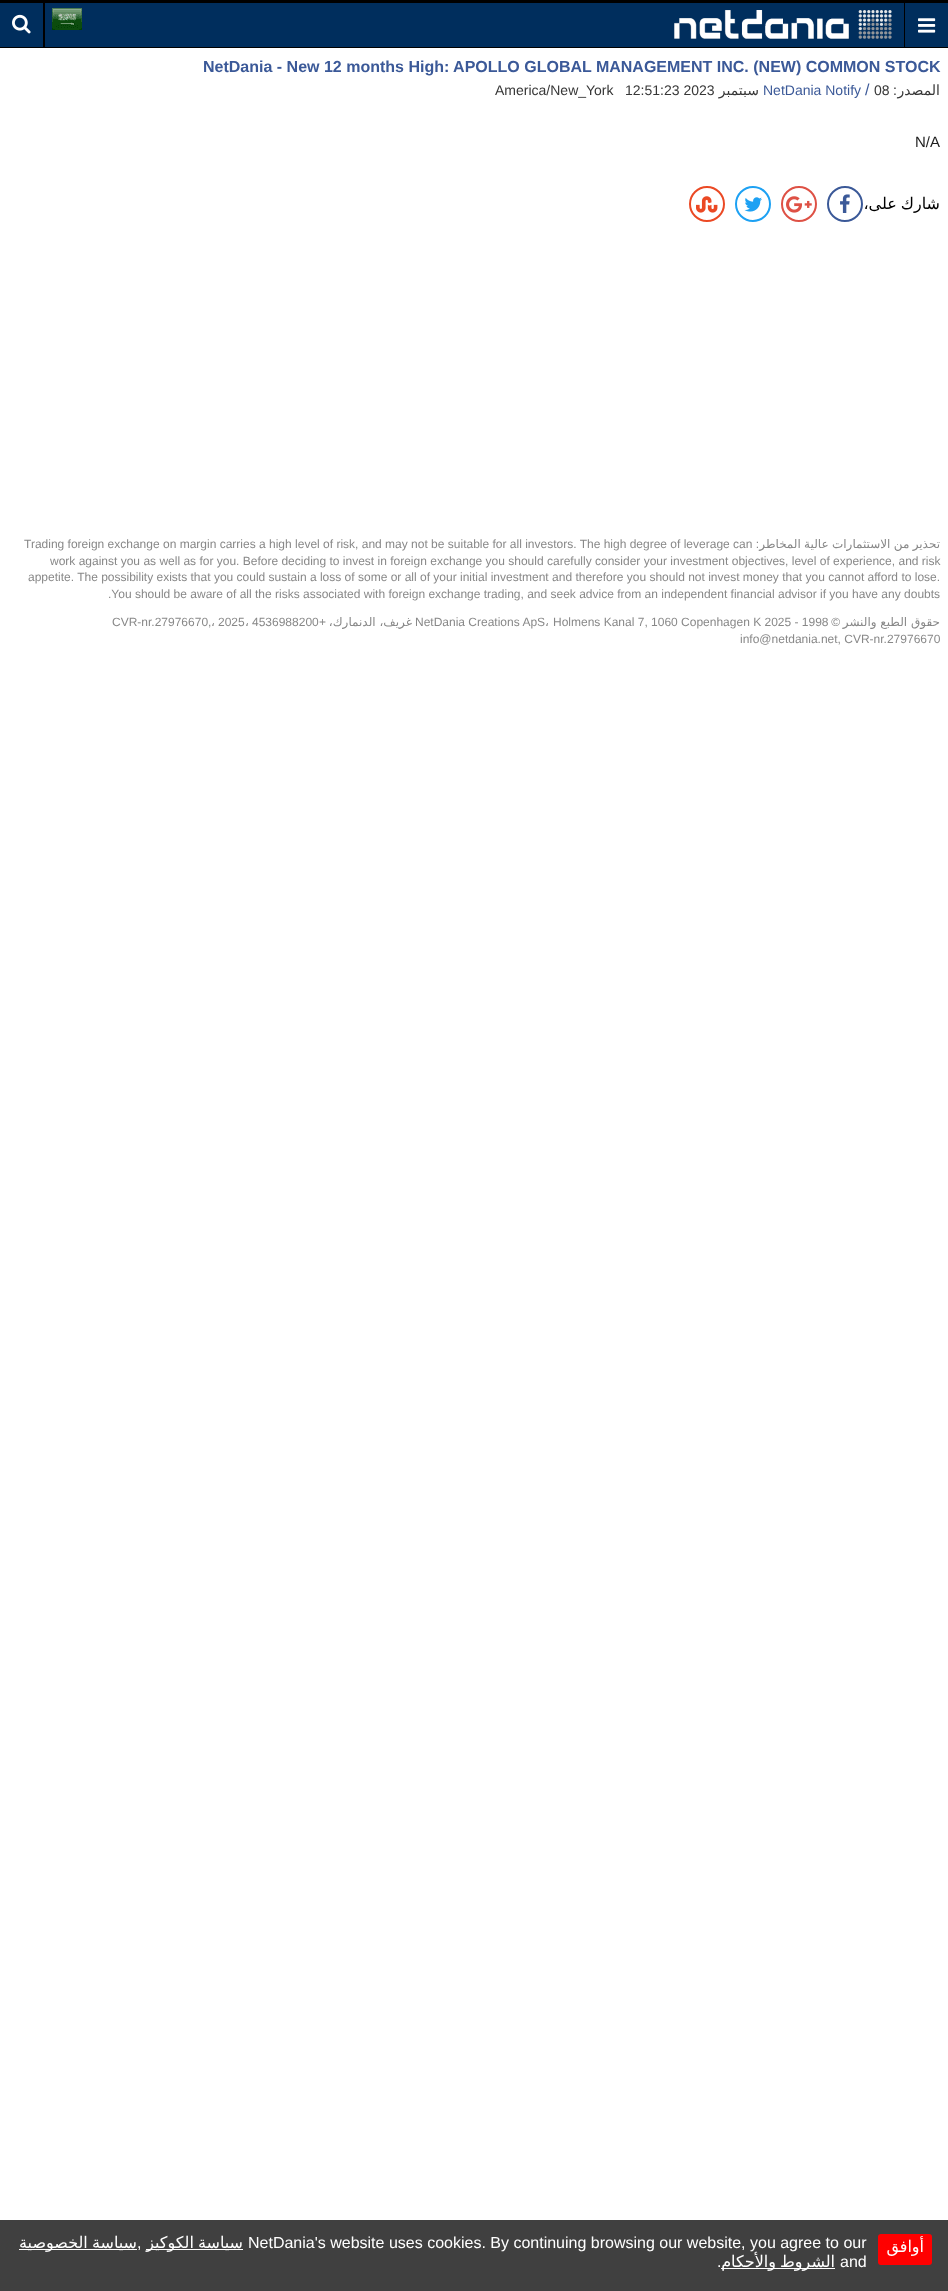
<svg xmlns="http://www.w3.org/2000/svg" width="948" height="2291">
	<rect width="100%" height="100%" fill="#FFFFFF" />
	<rect x="0" y="3" width="948" height="44" fill="#002E5D" />
	<rect x="0" y="0" width="948" height="3" fill="#000000" />
	<rect x="0" y="47" width="948" height="1" fill="#000000" />
	<image x="12" y="14" width="19" height="20" href="assets/img1.png" />
	<rect x="43" y="3" width="2" height="44" fill="#000000" />
	<image x="52" y="8" width="30" height="22" href="assets/img2.png" />
	<image x="674" y="10" width="218" height="29" href="assets/img3.png" />
	<rect x="904" y="3" width="1" height="44" fill="#000000" />
	<image x="918" y="18" width="18" height="15" href="assets/img4.png" />
	<text x="203" y="72" font-family="Liberation Sans" font-size="16" font-weight="700" fill="#3B5998">NetDania - New 12 months High: APOLLO GLOBAL MANAGEMENT INC. (NEW) COMMON STOCK</text>
	<g font-family="Liberation Sans" font-size="14" fill="#373737">
		<text x="495" y="95">America/New_York</text>
		<text x="625" y="95">12:51:23 2023</text>
	</g>
	<text x="759" y="95" font-family="DejaVu Sans" font-size="14" direction="rtl" fill="#373737">سبتمبر</text>
	<text x="763" y="95" font-family="Liberation Sans" font-size="14" fill="#3B5998">NetDania Notify</text>
	<text x="865" y="95" font-family="Liberation Sans" font-size="16" fill="#3B5998">/</text>
	<text x="874" y="95" font-family="Liberation Sans" font-size="14" fill="#373737">08</text>
	<text x="897" y="95" font-family="Liberation Sans" font-size="14" direction="rtl" fill="#373737">:</text>
	<text x="940" y="95" font-family="DejaVu Sans" font-size="14" direction="rtl" fill="#373737">المصدر</text>
	<text x="915" y="147" font-family="Liberation Sans" font-size="15" fill="#1D1D1D">N/A</text>
	<circle cx="707" cy="204" r="17" fill="none" stroke="#EB4924" stroke-width="2" />
	<image x="696" y="196" width="22" height="17" href="assets/img5.png" />
	<circle cx="753" cy="204" r="17" fill="none" stroke="#1DA1F3" stroke-width="2" />
	<image x="744" y="197" width="18" height="15" href="assets/img6.png" />
	<circle cx="799" cy="204" r="17" fill="none" stroke="#DE5145" stroke-width="2" />
	<image x="786" y="196" width="26" height="17" href="assets/img7.png" />
	<circle cx="845" cy="204" r="17" fill="none" stroke="#3B5998" stroke-width="2" />
	<image x="840" y="194" width="10" height="19" href="assets/img8.png" />
	<text x="940" y="209" word-spacing="-1" font-family="DejaVu Sans" font-size="16" direction="rtl" fill="#000000">شارك على،</text>
	<text x="24" y="548" font-family="Liberation Sans" font-size="12" fill="#888888">Trading foreign exchange on margin carries a high level of risk, and may not be suitable for all investors. The high degree of leverage can</text>
	<text x="759" y="548" font-family="Liberation Sans" font-size="12" direction="rtl" fill="#888888">:</text>
	<text x="940" y="548" word-spacing="-0.5" font-family="DejaVu Sans" font-size="12" direction="rtl" fill="#888888">تحذير من الاستثمارات عالية المخاطر</text>
	<g font-family="Liberation Sans" font-size="12" fill="#888888">
		<text x="50" y="565">work against you as well as for you. Before deciding to invest in foreign exchange you should carefully consider your investment objectives, level of experience, and risk</text>
		<text x="28" y="581">appetite. The possibility exists that you could sustain a loss of some or all of your initial investment and therefore you should not invest money that you cannot afford to lose.</text>
		<text x="108" y="598">.You should be aware of all the risks associated with foreign exchange trading, and seek advice from an independent financial advisor if you have any doubts</text>
		<text x="112" y="626">CVR-nr.27976670,</text>
	</g>
	<text x="211" y="626" font-family="DejaVu Sans" font-size="12" fill="#888888">،</text>
	<text x="218" y="626" font-family="Liberation Sans" font-size="12" fill="#888888">2025</text>
	<text x="245" y="626" font-family="DejaVu Sans" font-size="12" fill="#888888">،</text>
	<text x="252" y="626" font-family="Liberation Sans" font-size="12" fill="#888888">4536988200</text>
	<text x="326" y="626" font-family="Liberation Sans" font-size="12" direction="rtl" fill="#888888">+</text>
	<text x="412" y="626" font-family="DejaVu Sans" font-size="12" direction="rtl" fill="#888888">غريف، الدنمارك،</text>
	<text x="415" y="626" font-family="Liberation Sans" font-size="12" fill="#888888">NetDania Creations ApS</text>
	<text x="545" y="626" font-family="DejaVu Sans" font-size="12" fill="#888888">،</text>
	<text x="553" y="626" font-family="Liberation Sans" font-size="12" fill="#888888">Holmens Kanal 7, 1060 Copenhagen K 2025 - 1998</text>
	<text x="840" y="626" font-family="Liberation Sans" font-size="12" direction="rtl" fill="#888888">©</text>
	<text x="940" y="626" font-family="DejaVu Sans" font-size="12" direction="rtl" fill="#888888">حقوق الطبع والنشر</text>
	<text x="740" y="643" font-family="Liberation Sans" font-size="12" fill="#888888">info@netdania.net, CVR-nr.27976670</text>
	<rect x="0" y="2220" width="948" height="71" fill="#404040" />
	<rect x="19" y="2249" width="118" height="1" fill="#FFFFFF" />
	<text x="137" y="2248" word-spacing="-1" font-family="DejaVu Sans" font-size="16" direction="rtl" fill="#FFFFFF">سياسة الخصوصية</text>
	<text x="137" y="2248" font-family="Liberation Sans" font-size="16" fill="#FFFFFF">,</text>
	<rect x="146" y="2249" width="97" height="1" fill="#FFFFFF" />
	<text x="243" y="2248" word-spacing="-1" font-family="DejaVu Sans" font-size="16" direction="rtl" fill="#FFFFFF">سياسة الكوكيز</text>
	<text x="248" y="2248" font-family="Liberation Sans" font-size="16" fill="#FFFFFF">NetDania's website uses cookies. By continuing browsing our website, you agree to our</text>
	<rect x="878" y="2234" width="54" height="31" rx="3" fill="#FF0000" />
	<text x="924" y="2252" font-family="DejaVu Sans" font-size="16" direction="rtl" fill="#FFFFFF">أوافق</text>
	<text x="717" y="2267" font-family="Liberation Sans" font-size="16" fill="#FFFFFF">.</text>
	<rect x="721" y="2268" width="114" height="1" fill="#FFFFFF" />
	<text x="835" y="2267" word-spacing="-1" font-family="DejaVu Sans" font-size="16" direction="rtl" fill="#FFFFFF">الشروط والأحكام</text>
	<text x="840" y="2267" font-family="Liberation Sans" font-size="16" fill="#FFFFFF">and</text>
</svg>
